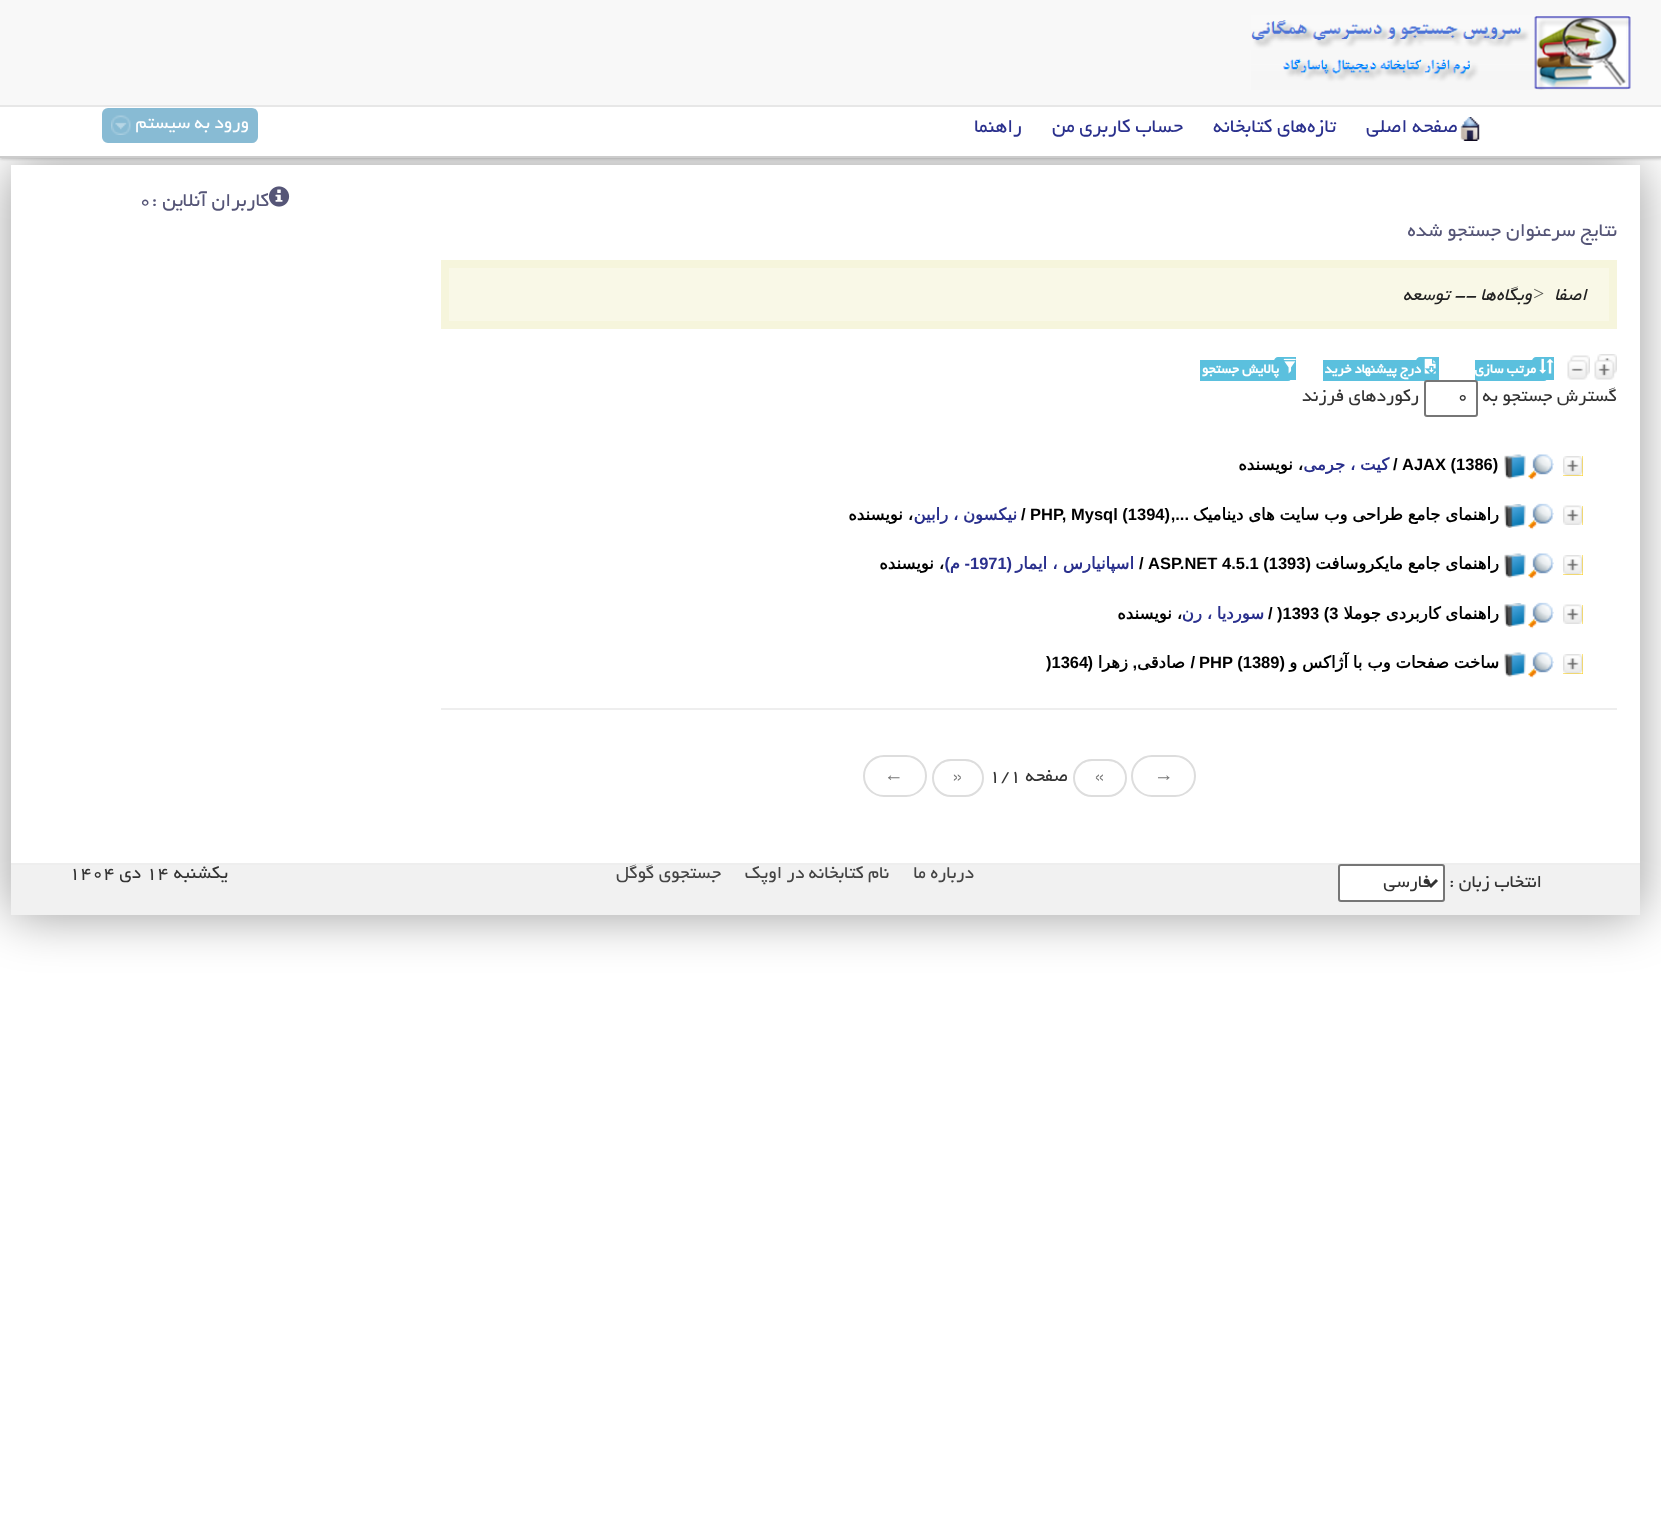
<svg xmlns="http://www.w3.org/2000/svg" width="1661" height="1521">
	<defs>
		<clipPath id="clip1"><path d="M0 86H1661V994H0ZM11 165H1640V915H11Z" clip-rule="evenodd" /></clipPath>
	</defs>
	<rect width="100%" height="100%" fill="#FFFFFF" />
	<rect x="0" y="107" width="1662" height="52" fill="#CCCCCC" filter="blur(1.5px)" />
	<g clip-path="url(#clip1)">
		<rect x="11" y="165" width="1629" height="750" fill="#000000" fill-opacity="0.4" filter="blur(26px)" />
	</g>
	<rect x="0" y="0" width="1661" height="105" fill="#F8F8F8" />
	<rect x="0" y="105" width="1661" height="2" fill="#E7E7E7" />
	<image x="1251" y="15" width="380" height="75" href="assets/img1.png" />
	<rect x="0" y="107" width="1661" height="49" fill="#FFFFFF" />
	<rect x="0" y="156" width="1661" height="2" fill="#CCCCCC" />
	<image x="1460" y="117" width="20" height="24" href="assets/img2.png" />
	<g font-family="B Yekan" font-size="21" direction="rtl" fill="#2A308D">
		<text x="1458" y="132">صفحه اصلی</text>
		<text x="1336" y="132">تازه‌های کتابخانه</text>
		<text x="1183" y="132">حساب کاربری من</text>
		<text x="1022" y="132">راهنما</text>
	</g>
	<rect x="102" y="108" width="156" height="35" rx="6" fill="#88BBD4" />
	<text x="249" y="128" font-family="B Yekan" font-size="19.5" direction="rtl" fill="#FFFFFF">ورود به سیستم</text>
	<image x="111" y="115" width="20" height="20" href="assets/img3.png" />
	<text x="269" y="206" font-family="B Yekan" font-size="21" direction="rtl" fill="#555577">کاربران آنلاین :</text>
	<image x="268" y="186" width="22" height="21" href="assets/img4.png" />
	<text x="139" y="206" font-family="B Yekan" font-size="21" fill="#555577">0</text>
	<text x="1617" y="236" font-family="B Yekan" font-size="21" direction="rtl" fill="#555577">نتایج سرعنوان جستجو شده</text>
	<rect x="445" y="264" width="1168" height="61" fill="#F9F8E7" stroke="#F6F5DC" stroke-width="8" />
	<text x="1587" y="300" font-family="B Yekan" font-size="19.5" font-style="italic" direction="rtl" fill="#222222">اصفا</text>
	<text x="1532" y="300" font-family="Liberation Serif" font-size="19.5" font-style="italic" fill="#575751">&gt;</text>
	<text x="1532" y="300" font-family="B Yekan" font-size="19.5" font-style="italic" direction="rtl" fill="#222222">وبگاه‌‌ها -- توسعه</text>
	<image x="1594" y="354" width="23" height="26" href="assets/img5.png" />
	<image x="1567" y="355" width="23" height="25" href="assets/img6.png" />
	<path d="M1536 357H1554V380H1536C1534 380 1532 378 1532 376V361C1532 359 1534 357 1536 357Z" fill="#5BC0DE" />
	<path d="M1475 360H1544C1546 360 1548 362 1548 364V377C1548 379 1546 381 1544 381H1475Z" fill="#5BC0DE" />
	<image x="1539" y="358" width="15" height="16" href="assets/img7.png" />
	<text x="1536" y="373" font-family="B Yekan" font-size="14.5" font-weight="700" direction="rtl" fill="#FFFFFF">مرتب سازی</text>
	<path d="M1420 357H1439V380H1420C1418 380 1416 378 1416 376V361C1416 359 1418 357 1420 357Z" fill="#5BC0DE" />
	<path d="M1323 360H1429C1431 360 1433 362 1433 364V377C1433 379 1431 381 1429 381H1323Z" fill="#5BC0DE" />
	<image x="1424" y="358" width="12" height="16" href="assets/img8.png" />
	<text x="1421" y="373" font-family="B Yekan" font-size="14.5" font-weight="700" direction="rtl" fill="#FFFFFF">درج پیشنهاد خرید</text>
	<path d="M1278 357H1296V380H1278C1276 380 1274 378 1274 376V361C1274 359 1276 357 1278 357Z" fill="#5BC0DE" />
	<path d="M1200 360H1288C1290 360 1292 362 1292 364V377C1292 379 1290 381 1288 381H1200Z" fill="#5BC0DE" />
	<image x="1283" y="358" width="13" height="16" href="assets/img9.png" />
	<text x="1279" y="373" font-family="B Yekan" font-size="14.5" font-weight="700" direction="rtl" fill="#FFFFFF">پالایش جستجو</text>
	<text x="1617" y="401" font-family="B Yekan" font-size="19.5" direction="rtl" fill="#333333">گسترش جستجو به</text>
	<rect x="1425" y="381" width="52" height="35" rx="2" fill="#FFFFFF" stroke="#767676" stroke-width="2" />
	<text x="1457" y="401" font-family="B Yekan" font-size="19.5" fill="#333333">0</text>
	<text x="1419" y="401" font-family="B Yekan" font-size="19.5" direction="rtl" fill="#333333">رکوردهای فرزند</text>
	<rect x="1563" y="456" width="20" height="20" fill="#FFCC00" />
	<image x="1528" y="454" width="26" height="26" href="assets/img10.png" />
	<image x="1504" y="454" width="22" height="25" href="assets/img11.png" />
	<image x="1563" y="456" width="20" height="20" href="assets/img12.png" />
	<g font-family="Liberation Sans" font-size="16.5" font-weight="700" fill="#000000">
		<text x="1402" y="470">AJAX (1386)</text>
		<text x="1393" y="470">/</text>
	</g>
	<text x="1389" y="470" word-spacing="-0.5" font-family="DejaVu Sans" font-size="16.5" font-weight="700" direction="rtl" fill="#2A308D">کیت ، جرمی</text>
	<text x="1303" y="470" word-spacing="-0.5" font-family="DejaVu Sans" font-size="16.5" font-weight="700" direction="rtl" fill="#000000">، نویسنده</text>
	<rect x="1582" y="506" width="1" height="19" fill="#FFCC00" />
	<image x="1563" y="505" width="20" height="20" href="assets/img13.png" />
	<image x="1528" y="503" width="26" height="27" href="assets/img14.png" />
	<image x="1504" y="504" width="22" height="24" href="assets/img15.png" />
	<text x="1499" y="520" word-spacing="-0.5" font-family="DejaVu Sans" font-size="16.5" font-weight="700" direction="rtl" fill="#000000">راهنمای جامع طراحی وب سایت های دینامیک</text>
	<text x="1189" y="520" font-family="Liberation Sans" font-size="16.5" font-weight="700" direction="rtl" fill="#000000">...,</text>
	<g font-family="Liberation Sans" font-size="16.5" font-weight="700" fill="#000000">
		<text x="1030" y="520">PHP, Mysql (1394)</text>
		<text x="1021" y="520">/</text>
	</g>
	<text x="1017" y="520" word-spacing="-0.5" font-family="DejaVu Sans" font-size="16.5" font-weight="700" direction="rtl" fill="#2A308D">نیکسون ، رابین</text>
	<text x="913" y="520" word-spacing="-0.5" font-family="DejaVu Sans" font-size="16.5" font-weight="700" direction="rtl" fill="#000000">، نویسنده</text>
	<rect x="1563" y="555" width="20" height="20" fill="#FFCC00" />
	<image x="1528" y="553" width="26" height="26" href="assets/img10.png" />
	<image x="1504" y="553" width="22" height="25" href="assets/img11.png" />
	<image x="1563" y="555" width="20" height="20" href="assets/img12.png" />
	<text x="1499" y="569" word-spacing="-0.5" font-family="DejaVu Sans" font-size="16.5" font-weight="700" direction="rtl" fill="#000000">راهنمای جامع مایکروسافت</text>
	<g font-family="Liberation Sans" font-size="16.5" font-weight="700" fill="#000000">
		<text x="1148" y="569">ASP.NET 4.5.1 (1393)</text>
		<text x="1139" y="569">/</text>
	</g>
	<text x="1134" y="569" font-family="DejaVu Sans" font-size="16.5" font-weight="700" direction="rtl" fill="#2A308D">اسپانیارس ، ایمار</text>
	<text x="1012" y="569" font-family="Liberation Sans" font-size="16.5" font-weight="700" direction="rtl" fill="#2A308D">(</text>
	<text x="970" y="569" font-family="Liberation Sans" font-size="16.5" font-weight="700" fill="#2A308D">1971</text>
	<text x="970" y="569" font-family="Liberation Sans" font-size="16.5" font-weight="700" direction="rtl" fill="#2A308D">-</text>
	<text x="960" y="569" font-family="DejaVu Sans" font-size="16.5" font-weight="700" direction="rtl" fill="#2A308D">م</text>
	<text x="950" y="569" font-family="Liberation Sans" font-size="16.5" font-weight="700" direction="rtl" fill="#2A308D">)</text>
	<text x="944" y="569" word-spacing="-0.5" font-family="DejaVu Sans" font-size="16.5" font-weight="700" direction="rtl" fill="#000000">، نویسنده</text>
	<rect x="1582" y="605" width="1" height="19" fill="#FFCC00" />
	<image x="1563" y="604" width="20" height="20" href="assets/img13.png" />
	<image x="1528" y="602" width="26" height="27" href="assets/img14.png" />
	<image x="1504" y="603" width="22" height="24" href="assets/img15.png" />
	<text x="1499" y="619" word-spacing="-0.5" font-family="DejaVu Sans" font-size="16.5" font-weight="700" direction="rtl" fill="#000000">راهنمای کاربردی جوملا</text>
	<g font-family="Liberation Sans" font-size="16.5" font-weight="700" fill="#000000">
		<text x="1277" y="619">)1393 (3</text>
		<text x="1268" y="619">/</text>
	</g>
	<text x="1264" y="619" word-spacing="-0.5" font-family="DejaVu Sans" font-size="16.5" font-weight="700" direction="rtl" fill="#2A308D">سوردیا ، رن</text>
	<text x="1182" y="619" word-spacing="-0.5" font-family="DejaVu Sans" font-size="16.5" font-weight="700" direction="rtl" fill="#000000">، نویسنده</text>
	<rect x="1563" y="654" width="20" height="20" fill="#FFCC00" />
	<image x="1528" y="652" width="26" height="26" href="assets/img10.png" />
	<image x="1504" y="652" width="22" height="25" href="assets/img11.png" />
	<text x="1499" y="668" word-spacing="-0.5" font-family="DejaVu Sans" font-size="16.5" font-weight="700" direction="rtl" fill="#000000">ساخت صفحات وب با آژاکس و</text>
	<image x="1563" y="654" width="20" height="20" href="assets/img12.png" />
	<text x="1199" y="668" font-family="Liberation Sans" font-size="16.5" font-weight="700" fill="#000000">PHP (1389)</text>
	<text x="1195" y="668" font-family="Liberation Sans" font-size="16.5" font-weight="700" direction="rtl" fill="#000000">/</text>
	<text x="1185" y="668" font-family="DejaVu Sans" font-size="16.5" font-weight="700" direction="rtl" fill="#000000">صادقی</text>
	<text x="1137" y="668" font-family="Liberation Sans" font-size="16.5" font-weight="700" direction="rtl" fill="#000000">,</text>
	<text x="1128" y="668" font-family="DejaVu Sans" font-size="16.5" font-weight="700" direction="rtl" fill="#000000">زهرا</text>
	<text x="1093" y="668" font-family="Liberation Sans" font-size="16.5" font-weight="700" direction="rtl" fill="#000000">(</text>
	<text x="1046" y="668" font-family="Liberation Sans" font-size="16.5" font-weight="700" fill="#000000">)1364</text>
	<rect x="441" y="708" width="1176" height="2" fill="#EEEEEE" />
	<rect x="1132" y="756" width="63" height="40" rx="20" fill="none" stroke="#DDDDDD" stroke-width="2" />
	<text x="1154" y="781" font-family="Liberation Serif" font-size="19.5" fill="#777777">→</text>
	<rect x="1074" y="760" width="52" height="36" rx="18" fill="none" stroke="#DDDDDD" stroke-width="2" />
	<text x="1095" y="781" font-family="B Yekan" font-size="19.5" fill="#777777">«</text>
	<text x="1068" y="781" font-family="B Yekan" font-size="19.5" direction="rtl" fill="#333333">صفحه</text>
	<text x="989" y="781" font-family="B Yekan" font-size="19.5" fill="#333333">1/1</text>
	<rect x="933" y="760" width="50" height="36" rx="18" fill="none" stroke="#DDDDDD" stroke-width="2" />
	<text x="953" y="781" font-family="B Yekan" font-size="19.5" fill="#777777">»</text>
	<rect x="864" y="756" width="62" height="40" rx="20" fill="none" stroke="#DDDDDD" stroke-width="2" />
	<text x="884" y="781" font-family="Liberation Serif" font-size="19.5" fill="#777777">←</text>
	<rect x="11" y="865" width="1629" height="50" fill="#F1F1F1" />
	<rect x="11" y="863" width="1629" height="2" fill="#EEEEEE" />
	<text x="1542" y="887" font-family="B Yekan" font-size="19.5" direction="rtl" fill="#333333">انتخاب زبان :</text>
	<rect x="1339" y="865" width="105" height="36" rx="2" fill="#FFFFFF" stroke="#767676" stroke-width="2" />
	<path d="M1425 880L1431 886L1437 880" fill="none" stroke="#333333" stroke-width="3" />
	<text x="1431" y="887" font-family="B Yekan" font-size="19.5" direction="rtl" fill="#333333">فارسی</text>
	<g font-family="B Yekan" font-size="19.5" direction="rtl" fill="#444444">
		<text x="974" y="878">درباره ما</text>
		<text x="889" y="878">نام کتابخانه در اوپک</text>
		<text x="721" y="878">جستجوی گوگل</text>
	</g>
	<text x="228" y="878" font-family="B Yekan" font-size="19.5" direction="rtl" fill="#333333">یکشنبه</text>
	<text x="146" y="878" font-family="B Yekan" font-size="19.5" fill="#333333">۱۴</text>
	<text x="141" y="878" font-family="B Yekan" font-size="19.5" direction="rtl" fill="#333333">دی</text>
	<text x="69" y="878" font-family="B Yekan" font-size="19.5" fill="#333333">۱۴۰۴</text>
</svg>
